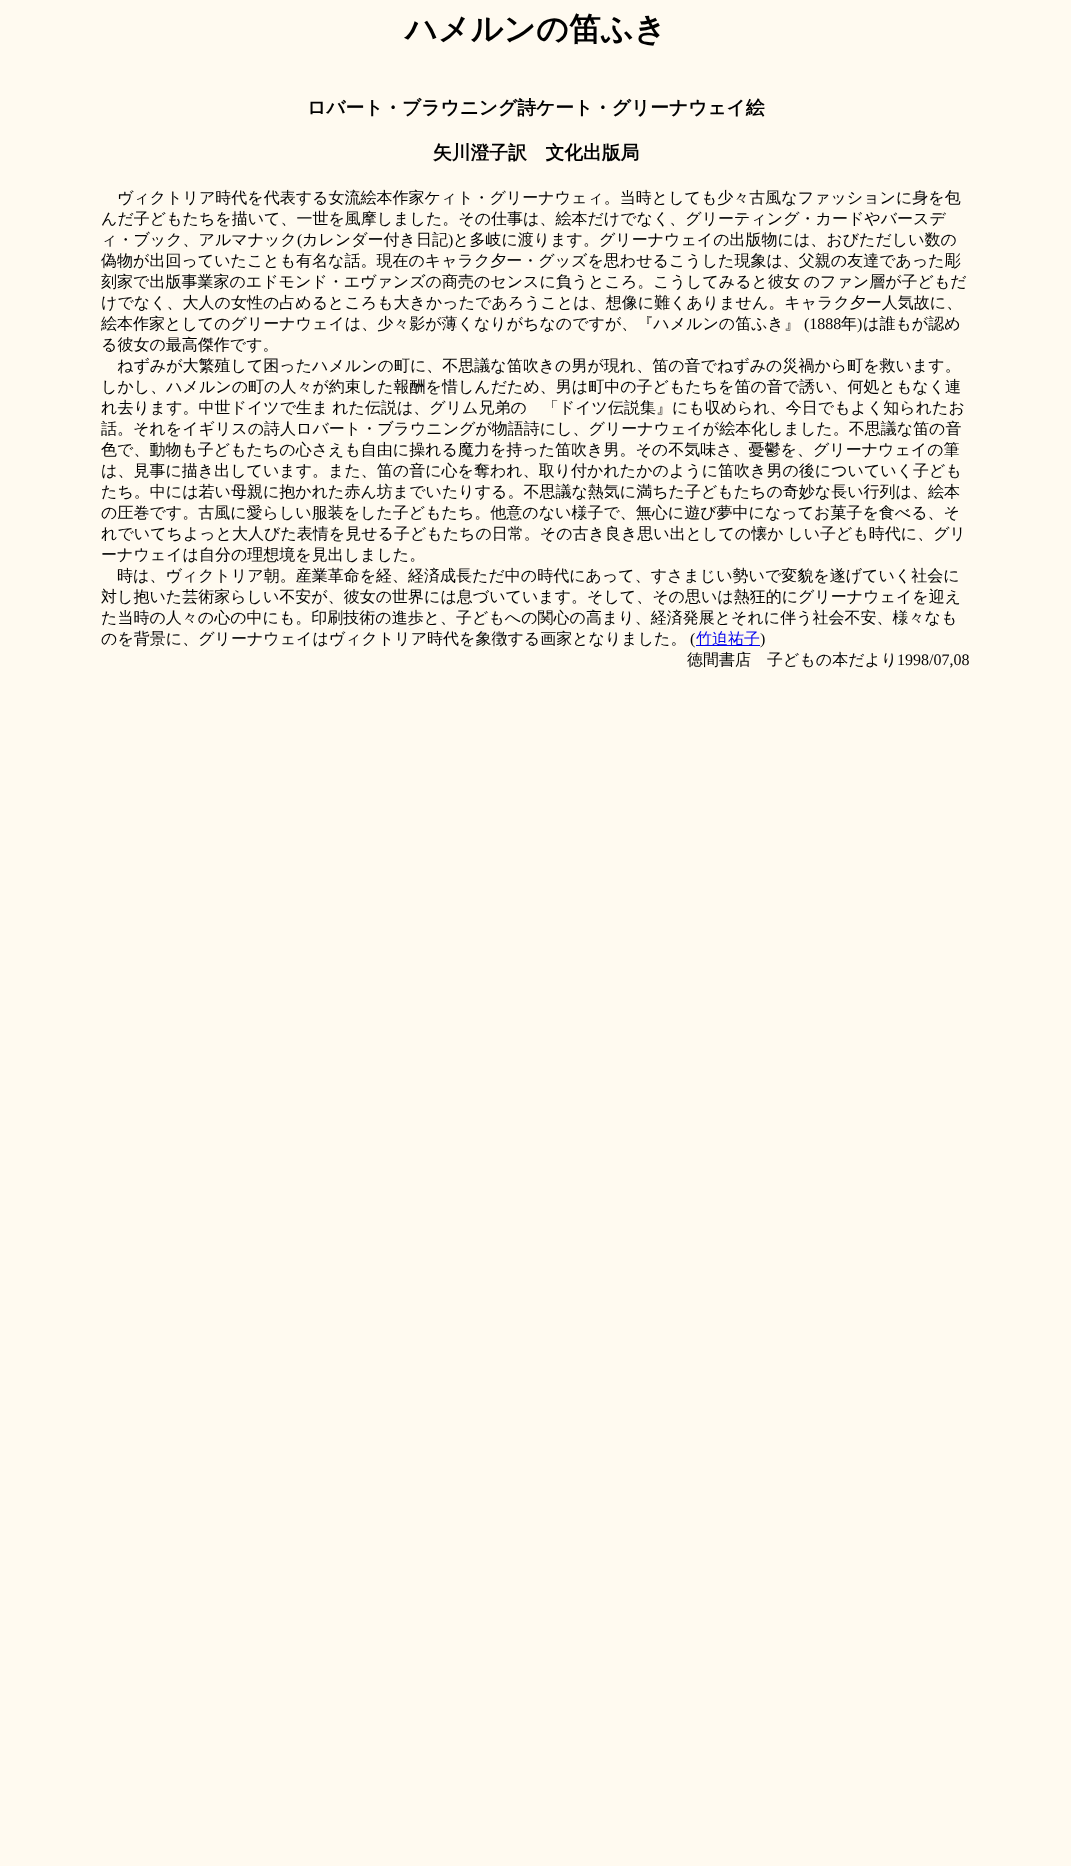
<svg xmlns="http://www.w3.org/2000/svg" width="1071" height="1866">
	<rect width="100%" height="100%" fill="#FFFAF0" />
	<text x="405" y="40" font-family="WenQuanYi Zen Hei" font-size="32" font-weight="700" fill="#000000">ハメルンの笛ふき</text>
	<g font-family="WenQuanYi Zen Hei" font-size="18.75" font-weight="700" fill="#000000">
		<text x="307" y="114">ロバート・ブラウニング詩ケート・グリーナウェイ絵</text>
		<text x="433" y="159">矢川澄子訳　文化出版局</text>
	</g>
	<g font-family="WenQuanYi Zen Hei" font-size="16" font-weight="500" fill="#000000">
		<text x="117" y="203">ヴィクトリア時代を代表する女流絵本作家ケィト・グリーナウェィ。当時としても少々古風なファッションに身を包</text>
		<text x="101" y="224">んだ子どもたちを描いて、一世を風摩しました。その仕事は、絵本だけでなく、グリーティング・カードやバースデ</text>
		<text x="101" y="245">ィ・ブック、アルマナック</text>
	</g>
	<text x="297" y="245" font-family="Liberation Serif" font-size="16" fill="#000000">(</text>
	<text x="302" y="245" font-family="WenQuanYi Zen Hei" font-size="16" font-weight="500" fill="#000000">カレンダー付き日記</text>
	<text x="448" y="245" font-family="Liberation Serif" font-size="16" fill="#000000">)</text>
	<g font-family="WenQuanYi Zen Hei" font-size="16" font-weight="500" fill="#000000">
		<text x="453" y="245">と多岐に渡ります。グリーナウェイの出版物には、おびただしい数の</text>
		<text x="101" y="266">偽物が出回っていたことも有名な話。現在のキャラク夕ー・グッズを思わせるこうした現象は、父親の友達であった彫</text>
		<text x="101" y="287" word-spacing="-1">刻家で出版事業家のエドモンド・エヴァンズの商売のセンスに負うところ。こうしてみると彼女 のファン層が子どもだ</text>
		<text x="101" y="308">けでなく、大人の女性の占めるところも大きかったであろうことは、想像に難くありません。キャラク夕ー人気故に、</text>
		<text x="101" y="329">絵本作家としてのグリーナウェイは、少々影が薄くなりがちなのですが、『ハメルンの笛ふき』</text>
	</g>
	<text x="804" y="329" font-family="Liberation Serif" font-size="16" fill="#000000">(1888</text>
	<text x="841" y="329" font-family="WenQuanYi Zen Hei" font-size="16" font-weight="500" fill="#000000">年</text>
	<text x="857" y="329" font-family="Liberation Serif" font-size="16" fill="#000000">)</text>
	<g font-family="WenQuanYi Zen Hei" font-size="16" font-weight="500" fill="#000000">
		<text x="863" y="329">は誰もが認め</text>
		<text x="101" y="350">る彼女の最高傑作です。</text>
		<text x="117" y="371">ねずみが大繁殖して困ったハメルンの町に、不思議な笛吹きの男が現れ、笛の音でねずみの災禍から町を救います。</text>
		<text x="101" y="392">しかし、ハメルンの町の人々が約束した報酬を惜しんだため、男は町中の子どもたちを笛の音で誘い、何処ともなく連</text>
		<text x="101" y="413" word-spacing="-1">れ去ります。中世ドイツで生ま れた伝説は、グリム兄弟の　「ドイツ伝説集』にも収められ、今日でもよく知られたお</text>
		<text x="101" y="434">話。それをイギリスの詩人ロバート・ブラウニングが物語詩にし、グリーナウェイが絵本化しました。不思議な笛の音</text>
		<text x="101" y="455">色で、動物も子どもたちの心さえも自由に操れる魔力を持った笛吹き男。その不気味さ、憂鬱を、グリーナウェイの筆</text>
		<text x="101" y="476">は、見事に描き出しています。また、笛の音に心を奪われ、取り付かれたかのように笛吹き男の後についていく子ども</text>
		<text x="101" y="497">たち。中には若い母親に抱かれた赤ん坊までいたりする。不思議な熱気に満ちた子どもたちの奇妙な長い行列は、絵本</text>
		<text x="101" y="518">の圧巻です。古風に愛らしい服装をした子どもたち。他意のない様子で、無心に遊び夢中になってお菓子を食べる、そ</text>
		<text x="101" y="539" word-spacing="-1">れでいてちよっと大人びた表情を見せる子どもたちの日常。その古き良き思い出としての懐か しい子ども時代に、グリ</text>
		<text x="101" y="560">ーナウェイは自分の理想境を見出しました。</text>
		<text x="117" y="581">時は、ヴィクトリア朝。産業革命を経、経済成長ただ中の時代にあって、すさまじい勢いで変貌を遂げていく社会に</text>
		<text x="101" y="602">対し抱いた芸術家らしい不安が、彼女の世界には息づいています。そして、その思いは熱狂的にグリーナウェイを迎え</text>
		<text x="101" y="623">た当時の人々の心の中にも。印刷技術の進歩と、子どもへの関心の高まり、経済発展とそれに伴う社会不安、様々なも</text>
		<text x="101" y="644">のを背景に、グリーナウェイはヴィクトリア時代を象徴する画家となりました。</text>
	</g>
	<text x="690" y="644" font-family="Liberation Serif" font-size="16" fill="#000000">(</text>
	<rect x="696" y="645" width="64" height="1" fill="#0000EE" />
	<text x="696" y="644" font-family="WenQuanYi Zen Hei" font-size="16" font-weight="500" fill="#0000EE">竹迫祐子</text>
	<text x="760" y="644" font-family="Liberation Serif" font-size="16" fill="#000000">)</text>
	<text x="687" y="665" font-family="WenQuanYi Zen Hei" font-size="16" font-weight="500" fill="#000000">徳間書店　子どもの本だより</text>
	<text x="897" y="665" font-family="Liberation Serif" font-size="16" fill="#000000">1998/07,08</text>
</svg>
